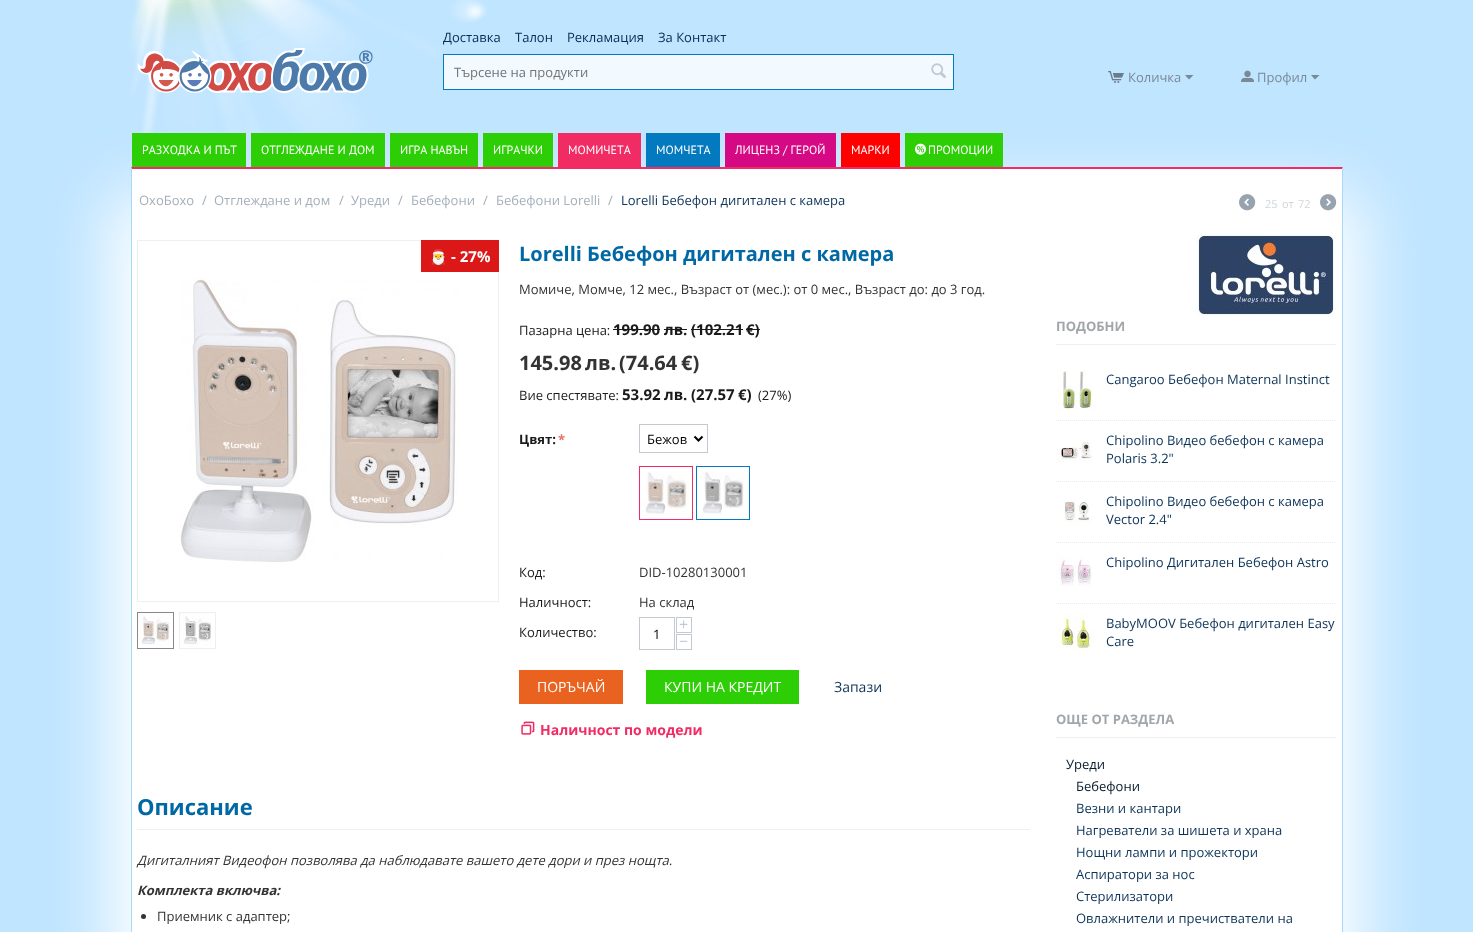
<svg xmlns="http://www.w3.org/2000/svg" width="1473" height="932">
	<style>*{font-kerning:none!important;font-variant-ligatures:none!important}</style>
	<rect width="100%" height="100%" fill="#C0E5FF" />
	<image x="129" y="0" width="358" height="156" href="assets/img1.png" />
	<image x="137" y="48" width="236" height="45" href="assets/img2.png" />
	<g font-family="Open Sans" font-size="13" fill="#062B54">
		<text x="443" y="42">Доставка</text>
		<text x="515" y="42">Талон</text>
		<text x="567" y="42">Рекламация</text>
		<text x="658" y="42">За Контакт</text>
	</g>
	<rect x="443.5" y="54.5" width="510" height="35" fill="#FFFFFF" fill-opacity="0.79" stroke="#037ABF" />
	<text x="454" y="77" font-family="Open Sans" font-size="13" fill="#737373">Търсене на продукти</text>
	<image x="931" y="63" width="15" height="16" href="assets/img3.png" />
	<image x="1108" y="71" width="16" height="12" href="assets/img4.png" />
	<text x="1128" y="82" font-family="Open Sans" font-size="13" fill="#7A8998">Количка</text>
	<path d="M1189 79.5L1185 75H1193.5Z" fill="#7A8998" />
	<image x="1241" y="70" width="13" height="12" href="assets/img5.png" />
	<text x="1257" y="82" font-family="Open Sans" font-size="13" fill="#7A8998">Профил</text>
	<path d="M1315 79.5L1311 75H1319.5Z" fill="#7A8998" />
	<rect x="111" y="195" width="1250" height="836" fill="#FFFFFF" filter="blur(33px)" />
	<rect x="132" y="133" width="114" height="34" fill="#2ECE06" />
	<text x="142" y="154" font-family="PT Sans" font-size="12" fill="#FFFFFF">РАЗХОДКА И ПЪТ</text>
	<rect x="251" y="133" width="134" height="34" fill="#2ECE06" />
	<text x="261" y="154" font-family="PT Sans" font-size="12" fill="#FFFFFF">ОТГЛЕЖДАНЕ И ДОМ</text>
	<rect x="390" y="133" width="88" height="34" fill="#2ECE06" />
	<text x="400" y="154" font-family="PT Sans" font-size="12" fill="#FFFFFF">ИГРА НАВЪН</text>
	<rect x="483" y="133" width="70" height="34" fill="#2ECE06" />
	<text x="493" y="154" font-family="PT Sans" font-size="12" fill="#FFFFFF">ИГРАЧКИ</text>
	<rect x="558" y="133" width="83" height="34" fill="#F12B63" />
	<text x="568" y="154" font-family="PT Sans" font-size="12" fill="#FFFFFF">МОМИЧЕТА</text>
	<rect x="646" y="133" width="74" height="34" fill="#037ABF" />
	<text x="656" y="154" font-family="PT Sans" font-size="12" fill="#FFFFFF">МОМЧЕТА</text>
	<rect x="725" y="133" width="111" height="34" fill="#D60984" />
	<text x="735" y="154" font-family="PT Sans" font-size="12" fill="#FFFFFF">ЛИЦЕНЗ / ГЕРОЙ</text>
	<rect x="841" y="133" width="59" height="34" fill="#FF0000" />
	<text x="851" y="154" font-family="PT Sans" font-size="12" fill="#FFFFFF">МАРКИ</text>
	<rect x="905" y="133" width="98" height="34" fill="#2ECE06" />
	<image x="915" y="143" width="11" height="12" href="assets/img6.png" />
	<text x="928" y="154" font-family="PT Sans" font-size="12" fill="#FFFFFF">ПРОМОЦИИ</text>
	<rect x="132" y="169" width="1210" height="763" fill="#FFFFFF" />
	<path d="M131 167H1343L1342 169H132Z" fill="#F12B63" />
	<path d="M1343 167V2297L1342 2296V169Z" fill="#A8D9FB" />
	<path d="M131 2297V167L132 169V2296Z" fill="#A8D9FB" />
	<g font-family="Open Sans" font-size="13" fill="#A5AFB9">
		<text x="139" y="205">ОхоБохо</text>
		<text x="202" y="205">/</text>
		<text x="214" y="205">Отглеждане и дом</text>
		<text x="339" y="205">/</text>
		<text x="351" y="205">Уреди</text>
		<text x="398" y="205">/</text>
		<text x="411" y="205">Бебефони</text>
		<text x="483" y="205">/</text>
		<text x="496" y="205">Бебефони Lorelli</text>
		<text x="608" y="205">/</text>
	</g>
	<text x="621" y="205" font-family="Open Sans" font-size="13" fill="#0C3358">Lorelli Бебефон дигитален с камера</text>
	<image x="1239" y="194" width="17" height="17" href="assets/img7.png" />
	<g font-family="Open Sans" font-size="11" fill="#D0D6DB">
		<text x="1265" y="208">25</text>
		<text x="1282" y="208">от</text>
		<text x="1298" y="208">72</text>
	</g>
	<image x="1320" y="194" width="17" height="17" href="assets/img8.png" />
	<rect x="137.5" y="240.5" width="361" height="361" fill="none" stroke="#EDEFF1" />
	<image x="179" y="277" width="279" height="285" href="assets/img9.png" />
	<rect x="421" y="240" width="78" height="32" fill="#DB1717" />
	<text x="429" y="262" font-family="Noto Color Emoji" font-size="15" font-weight="700" fill="#FFFFFF">🎅</text>
	<text x="451" y="262" font-family="Open Sans" font-size="15" font-weight="700" fill="#FFFFFF">- 27%</text>
	<rect x="137.5" y="612.5" width="36" height="36" fill="none" stroke="#888888" />
	<image x="138" y="613" width="32" height="32" href="assets/img10.png" />
	<rect x="179.5" y="612.5" width="36" height="36" fill="none" stroke="#EDEFF1" />
	<image x="180" y="613" width="32" height="32" href="assets/img11.png" />
	<text x="519" y="261" font-family="Open Sans" font-size="20" font-weight="700" fill="#0068A5">Lorelli Бебефон дигитален с камера</text>
	<text x="519" y="294" font-family="Open Sans" font-size="13" fill="#333333">Момиче, Момче, 12 мес., Възраст от (мес.): от 0 мес., Възраст до: до 3 год.</text>
	<text x="519" y="335" font-family="Open Sans" font-size="13" fill="#1A1A1A">Пазарна цена:</text>
	<text x="613" y="335" font-family="Open Sans" font-size="15" font-weight="700" fill="#1A1A1A">199.90</text>
	<rect x="613" y="329" width="47" height="1" fill="#1B1B1B" />
	<text x="664" y="335" font-family="Open Sans" font-size="15" font-weight="700" fill="#1A1A1A">лв.</text>
	<rect x="664" y="329" width="23" height="1" fill="#1B1B1B" />
	<text x="691" y="335" font-family="Open Sans" font-size="15" font-weight="700" fill="#1A1A1A">(102.21</text>
	<rect x="691" y="329" width="52" height="1" fill="#1B1B1B" />
	<text x="746" y="335" font-family="Open Sans" font-size="15" font-weight="700" fill="#1A1A1A">€)</text>
	<rect x="746" y="329" width="14" height="1" fill="#1B1B1B" />
	<g font-family="Open Sans" font-size="20" font-weight="700" fill="#333333">
		<text x="519" y="370">145.98</text>
		<text x="585" y="370">лв.</text>
		<text x="619" y="370">(74.64</text>
		<text x="681" y="370">€)</text>
	</g>
	<text x="519" y="400" font-family="Open Sans" font-size="13" fill="#1A1A1A">Вие спестявате:</text>
	<g font-family="Open Sans" font-size="15" font-weight="700" fill="#1A1A1A">
		<text x="622" y="400">53.92</text>
		<text x="664" y="400">лв.</text>
		<text x="691" y="400">(27.57</text>
		<text x="738" y="400">€)</text>
	</g>
	<text x="758" y="400" font-family="Open Sans" font-size="13" fill="#1A1A1A">(27%)</text>
	<text x="519" y="444" font-family="Open Sans" font-size="13" font-weight="700" fill="#1A1A1A">Цвят:</text>
	<text x="558" y="444" font-family="Open Sans" font-size="13" font-weight="700" fill="#EA7162">*</text>
	<rect x="639.5" y="424.5" width="68" height="28" fill="none" stroke="#C2C9D0" />
	<path d="M694.5 436.5L698.5 440.5L702.5 436.5" fill="none" stroke="#000000" stroke-width="2" />
	<text x="647" y="444" font-family="Open Sans" font-size="13" fill="#000000">Бежов</text>
	<rect x="639.5" y="466.5" width="53" height="53" fill="none" stroke="#F12B63" />
	<image x="640" y="471" width="50" height="45" href="assets/img12.png" />
	<rect x="696.5" y="466.5" width="53" height="53" fill="none" stroke="#037ABF" />
	<image x="703" y="468" width="42" height="48" href="assets/img13.png" />
	<text x="519" y="577" font-family="Open Sans" font-size="13" fill="#1A1A1A">Код:</text>
	<text x="639" y="577" font-family="Open Sans" font-size="13" fill="#333333">DID-10280130001</text>
	<text x="519" y="607" font-family="Open Sans" font-size="13" fill="#1A1A1A">Наличност:</text>
	<text x="639" y="607" font-family="Open Sans" font-size="13" fill="#333333">На склад</text>
	<text x="519" y="637" font-family="Open Sans" font-size="13" fill="#1A1A1A">Количество:</text>
	<rect x="676.5" y="617.5" width="15" height="15" fill="none" stroke="#C2C9D0" />
	<text x="679" y="630" font-family="Open Sans" font-size="16" fill="#C2C9D0">+</text>
	<rect x="639.5" y="617.5" width="35" height="32" fill="none" stroke="#C2C9D0" />
	<text x="653" y="639" font-family="Open Sans" font-size="13" fill="#000000">1</text>
	<rect x="676.5" y="634.5" width="15" height="15" fill="none" stroke="#C2C9D0" />
	<text x="679" y="647" font-family="Open Sans" font-size="16" fill="#C2C9D0">−</text>
	<rect x="519" y="670" width="104" height="34" fill="#EA621F" />
	<text x="537" y="692" font-family="Open Sans" font-size="14" fill="#FFFFFF">ПОРЪЧАЙ</text>
	<rect x="646" y="670" width="153" height="34" fill="#2ECE06" />
	<text x="664" y="692" font-family="Open Sans" font-size="14" fill="#FFFFFF">КУПИ НА КРЕДИТ</text>
	<text x="834" y="692" font-family="Open Sans" font-size="14" fill="#0C3358">Запази</text>
	<image x="521" y="721" width="14" height="14" href="assets/img14.png" />
	<text x="540" y="735" font-family="Open Sans" font-size="14" font-weight="700" fill="#F12B63">Наличност по модели</text>
	<rect x="137" y="829" width="893" height="1" fill="#EDEFF1" />
	<text x="137" y="815" font-family="Open Sans" font-size="22" font-weight="700" fill="#0068A5">Описание</text>
	<text x="137" y="865" font-family="Open Sans" font-size="13" font-style="italic" fill="#333333">Дигиталният Видеофон позволява да наблюдавате вашето дете дори и през нощта.</text>
	<text x="137" y="895" font-family="Open Sans" font-size="13" font-weight="700" font-style="italic" fill="#333333">Комплекта включва:</text>
	<circle cx="143.5" cy="916.5" r="2.5" fill="#333333" />
	<text x="157" y="921" font-family="Open Sans" font-size="13" fill="#333333">Приемник с адаптер;</text>
	<image x="1196" y="235" width="140" height="80" href="assets/img15.png" />
	<rect x="1056" y="344" width="280" height="1" fill="#EDEFF1" />
	<text x="1056" y="331" font-family="Open Sans" font-size="13" font-weight="700" fill="#A1A6AA">ПОДОБНИ</text>
	<path d="M1056 420.5H1336" fill="none" stroke="#EBEBEB" stroke-dasharray="1 1" />
	<image x="1056" y="370" width="40" height="40" href="assets/img16.png" />
	<text x="1106" y="384" font-family="Open Sans" font-size="13" fill="#0C3358">Cangaroo Бебефон Maternal Instinct</text>
	<path d="M1056 481.5H1336" fill="none" stroke="#EBEBEB" stroke-dasharray="1 1" />
	<image x="1056" y="439" width="37" height="24" href="assets/img17.png" />
	<g font-family="Open Sans" font-size="13" fill="#0C3358">
		<text x="1106" y="445">Chipolino Видео бебефон с камера</text>
		<text x="1106" y="463">Polaris 3.2"</text>
	</g>
	<path d="M1056 542.5H1336" fill="none" stroke="#EBEBEB" stroke-dasharray="1 1" />
	<image x="1064" y="500" width="30" height="24" href="assets/img18.png" />
	<g font-family="Open Sans" font-size="13" fill="#0C3358">
		<text x="1106" y="506">Chipolino Видео бебефон с камера</text>
		<text x="1106" y="524">Vector 2.4"</text>
	</g>
	<path d="M1056 603.5H1336" fill="none" stroke="#EBEBEB" stroke-dasharray="1 1" />
	<image x="1056" y="553" width="36" height="33" href="assets/img19.png" />
	<text x="1106" y="567" font-family="Open Sans" font-size="13" fill="#0C3358">Chipolino Дигитален Бебефон Astro</text>
	<image x="1056" y="614" width="40" height="37" href="assets/img20.png" />
	<g font-family="Open Sans" font-size="13" fill="#0C3358">
		<text x="1106" y="628">BabyMOOV Бебефон дигитален Easy</text>
		<text x="1106" y="646">Care</text>
	</g>
	<rect x="1056" y="737" width="280" height="1" fill="#EDEFF1" />
	<text x="1056" y="724" font-family="Open Sans" font-size="13" font-weight="700" fill="#A1A6AA">ОЩЕ ОТ РАЗДЕЛА</text>
	<g font-family="Open Sans" font-size="13" fill="#06192B">
		<text x="1066" y="769">Уреди</text>
		<text x="1076" y="791">Бебефони</text>
	</g>
	<g font-family="Open Sans" font-size="13" fill="#0C3358">
		<text x="1076" y="813">Везни и кантари</text>
		<text x="1076" y="835">Нагреватели за шишета и храна</text>
		<text x="1076" y="857">Нощни лампи и прожектори</text>
		<text x="1076" y="879">Аспиратори за нос</text>
		<text x="1076" y="901">Стерилизатори</text>
		<text x="1076" y="923">Овлажнители и пречистватели на</text>
	</g>
</svg>
